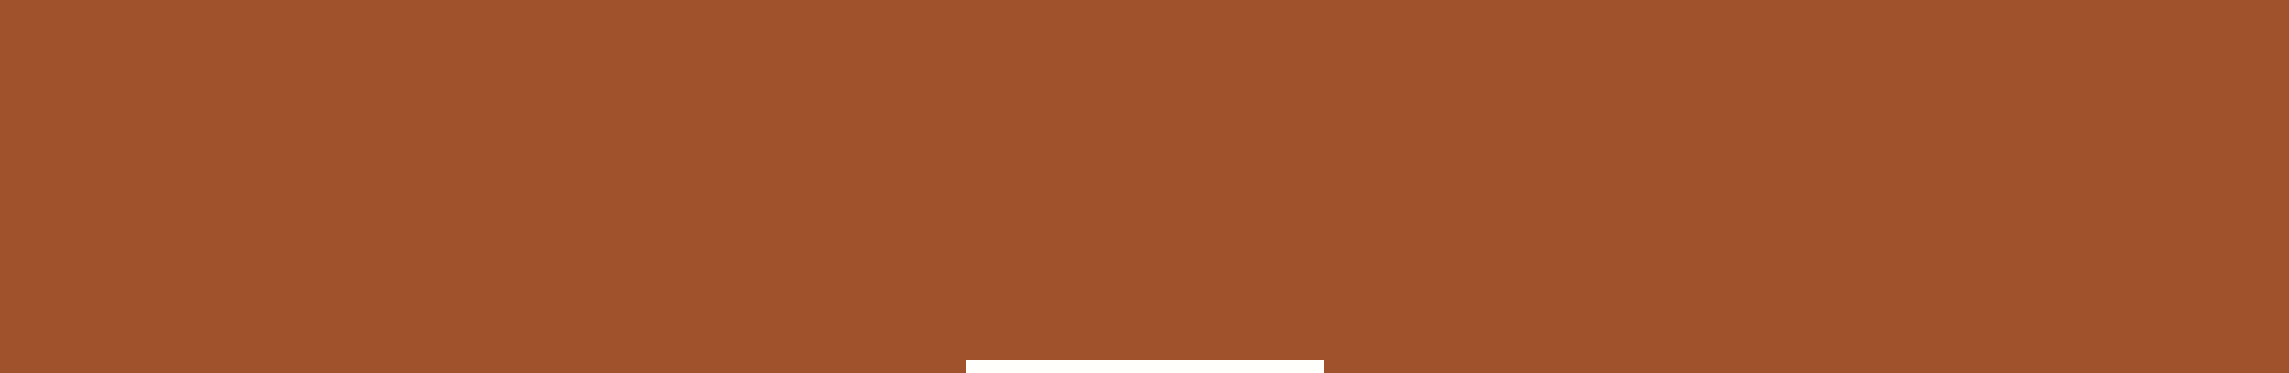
<svg xmlns="http://www.w3.org/2000/svg" width="2289" height="373">
	<rect width="100%" height="100%" fill="#A0522D" />
	<rect x="966" y="360" width="358" height="13" fill="#FFFFFC" />
</svg>
